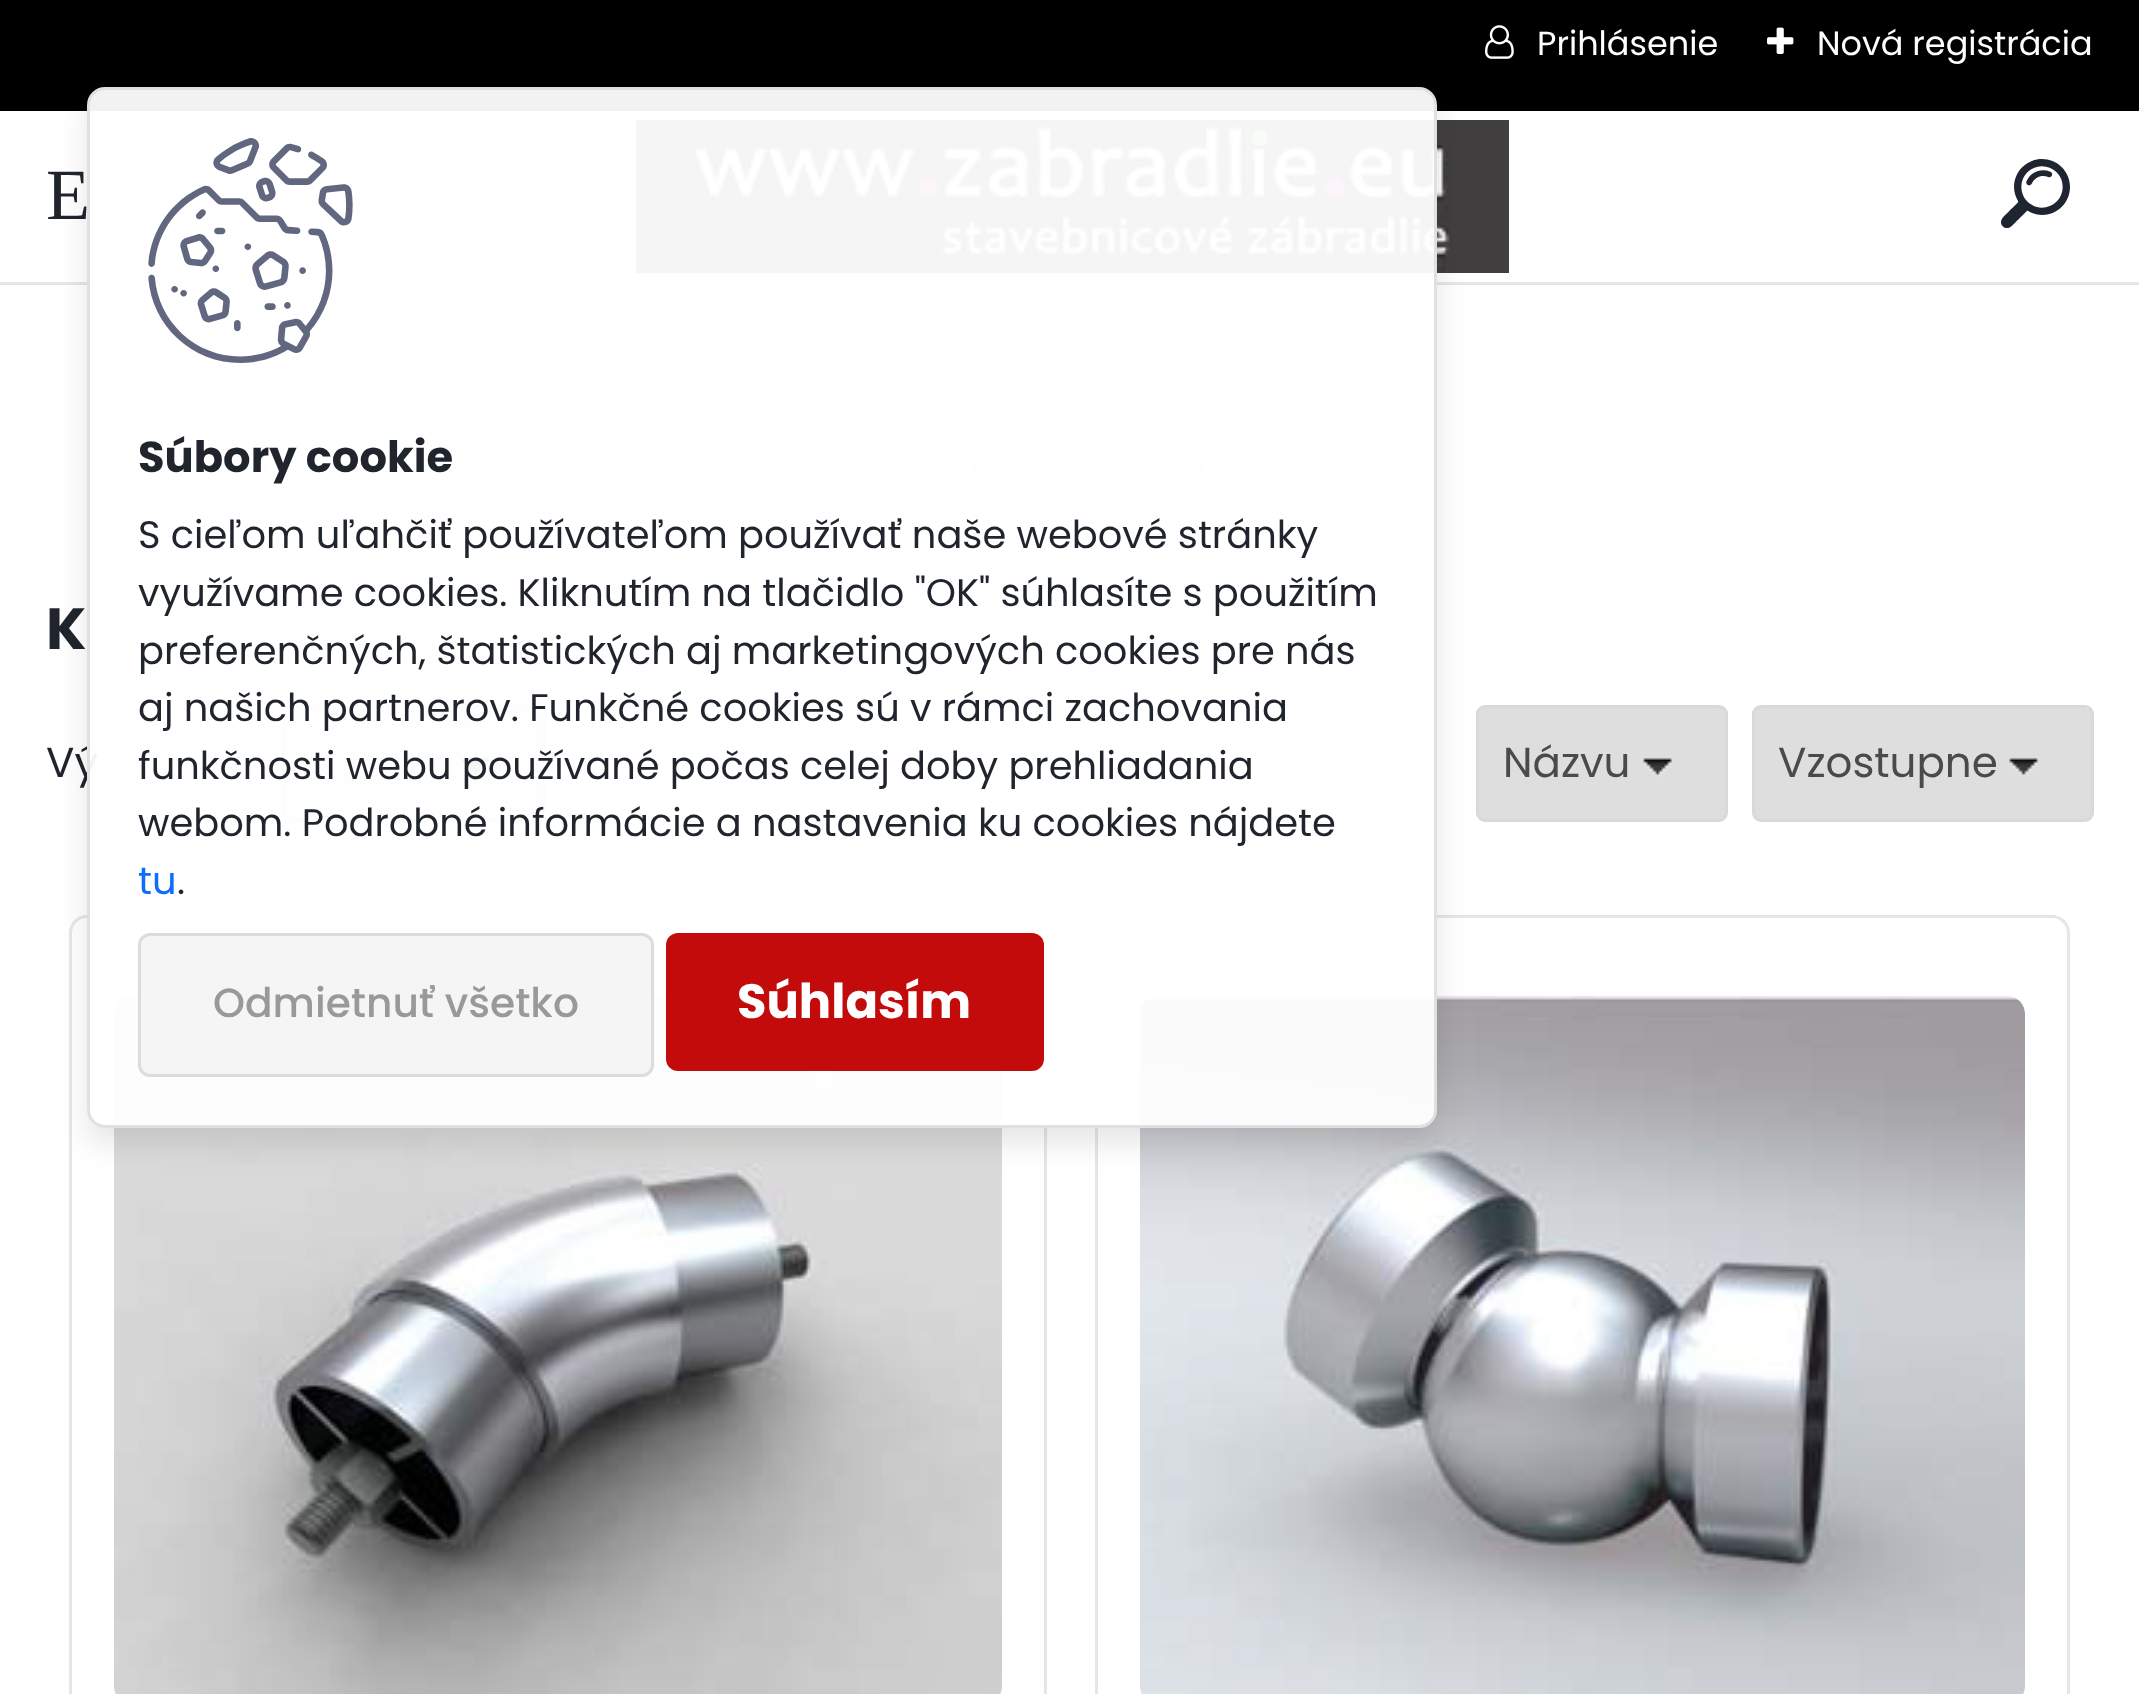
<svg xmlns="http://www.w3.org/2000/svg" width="2139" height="1694">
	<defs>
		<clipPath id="clip1"><path d="M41 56H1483V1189H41ZM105 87H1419C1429 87 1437 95 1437 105V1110C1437 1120 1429 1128 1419 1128H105C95 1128 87 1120 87 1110V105C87 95 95 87 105 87Z" clip-rule="evenodd" /></clipPath>
	</defs>
	<rect width="100%" height="100%" fill="#FFFFFF" />
	<rect x="0" y="0" width="2139" height="111" fill="#000000" />
	<image x="1485" y="25" width="29" height="34" href="assets/img1.png" />
	<text x="1537" y="55" font-family="Poppins" font-size="33.5" fill="#FFFFFF">Prihlásenie</text>
	<image x="1767" y="27" width="27" height="27" href="assets/img2.png" />
	<text x="1817" y="55" font-family="Poppins" font-size="33.5" fill="#FFFFFF">Nová registrácia</text>
	<rect x="0" y="282" width="2139" height="3" fill="#E6E6E6" />
	<text x="46" y="219" font-family="Liberation Serif" font-size="72" fill="#1F242D">E</text>
	<image x="635" y="120" width="874" height="153" href="assets/img3.png" />
	<image x="2001" y="159" width="69" height="69" href="assets/img4.png" />
	<path d="M207 410H210L268 468H265Z" fill="#D7D7D7" />
	<path d="M265 468H268L210 526H207Z" fill="#D7D7D7" />
	<path d="M917 410H920L978 468H975Z" fill="#D7D7D7" />
	<path d="M975 468H978L920 526H917Z" fill="#D7D7D7" />
	<path d="M1143 410H1146L1204 468H1201Z" fill="#D7D7D7" />
	<path d="M1201 468H1204L1146 526H1143Z" fill="#D7D7D7" />
	<text x="46" y="649" font-family="Poppins" font-size="58" font-weight="700" fill="#1F242D">K</text>
	<text x="46" y="777" font-family="Poppins" font-size="42" fill="#1F242D">Vý</text>
	<rect x="283.5" y="706.5" width="261" height="114" rx="7.5" fill="#DFDEDE" stroke="#D9D9D9" stroke-width="3" />
	<image x="461" y="758" width="30" height="19" href="assets/img5.png" />
	<rect x="1477.5" y="706.5" width="249" height="114" rx="7.5" fill="#DFDEDE" stroke="#D9D9D9" stroke-width="3" />
	<text x="1503" y="777" font-family="Poppins" font-size="42" fill="#4A4A4A">Názvu</text>
	<image x="1643" y="758" width="29" height="19" href="assets/img6.png" />
	<rect x="1753.5" y="706.5" width="339" height="114" rx="7.5" fill="#DFDEDE" stroke="#D9D9D9" stroke-width="3" />
	<text x="1778" y="777" font-family="Poppins" font-size="42" fill="#4A4A4A">Vzostupne</text>
	<image x="2009" y="758" width="29" height="19" href="assets/img7.png" />
	<rect x="70.5" y="916.5" width="975" height="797" rx="16.5" fill="none" stroke="#E6E6E6" stroke-width="3" />
	<image x="114" y="996" width="888" height="698" href="assets/img8.png" />
	<rect x="1096.5" y="916.5" width="972" height="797" rx="16.5" fill="none" stroke="#E6E6E6" stroke-width="3" />
	<image x="1140" y="996" width="885" height="698" href="assets/img9.png" />
	<g clip-path="url(#clip1)">
		<rect x="87" y="102" width="1350" height="1041" rx="18" fill="#000000" fill-opacity="0.1" filter="blur(15px)" />
	</g>
	<rect x="88.5" y="88.5" width="1347" height="1038" rx="16.5" fill="#FFFFFF" fill-opacity="0.95" stroke="#E0E0E0" stroke-width="3" />
	<image x="148" y="138" width="205" height="225" href="assets/img10.png" />
	<text x="138" y="472" font-family="Poppins" font-size="43.25" font-weight="700" fill="#1F242D">Súbory cookie</text>
	<g font-family="Poppins" font-size="38.4" fill="#1F242D">
		<text x="138" y="548">S cieľom uľahčiť používateľom používať naše webové stránky</text>
		<text x="138" y="606">využívame cookies. Kliknutím na tlačidlo "OK" súhlasíte s použitím</text>
		<text x="138" y="664">preferenčných, štatistických aj marketingových cookies pre nás</text>
		<text x="138" y="721">aj našich partnerov. Funkčné cookies sú v rámci zachovania</text>
		<text x="138" y="779">funkčnosti webu používané počas celej doby prehliadania</text>
		<text x="138" y="836">webom. Podrobné informácie a nastavenia ku cookies nájdete</text>
	</g>
	<text x="138" y="894" font-family="Poppins" font-size="38.4" fill="#0D6EFD">tu</text>
	<text x="177" y="894" font-family="Poppins" font-size="38.4" fill="#1F242D">.</text>
	<rect x="138" y="933" width="516" height="144" rx="12" fill="#F5F5F5" />
	<rect x="139.5" y="934.5" width="513" height="141" rx="10.5" fill="none" stroke="#000000" stroke-opacity="0.1" stroke-width="3" />
	<text x="213" y="1017" font-family="Poppins" font-size="40.75" font-weight="500" fill="#999999">Odmietnuť všetko</text>
	<rect x="666" y="933" width="378" height="138" rx="12" fill="#C40B0B" />
	<text x="737" y="1018" font-family="Poppins" font-size="48" font-weight="700" fill="#FFFFFF">Súhlasím</text>
</svg>
